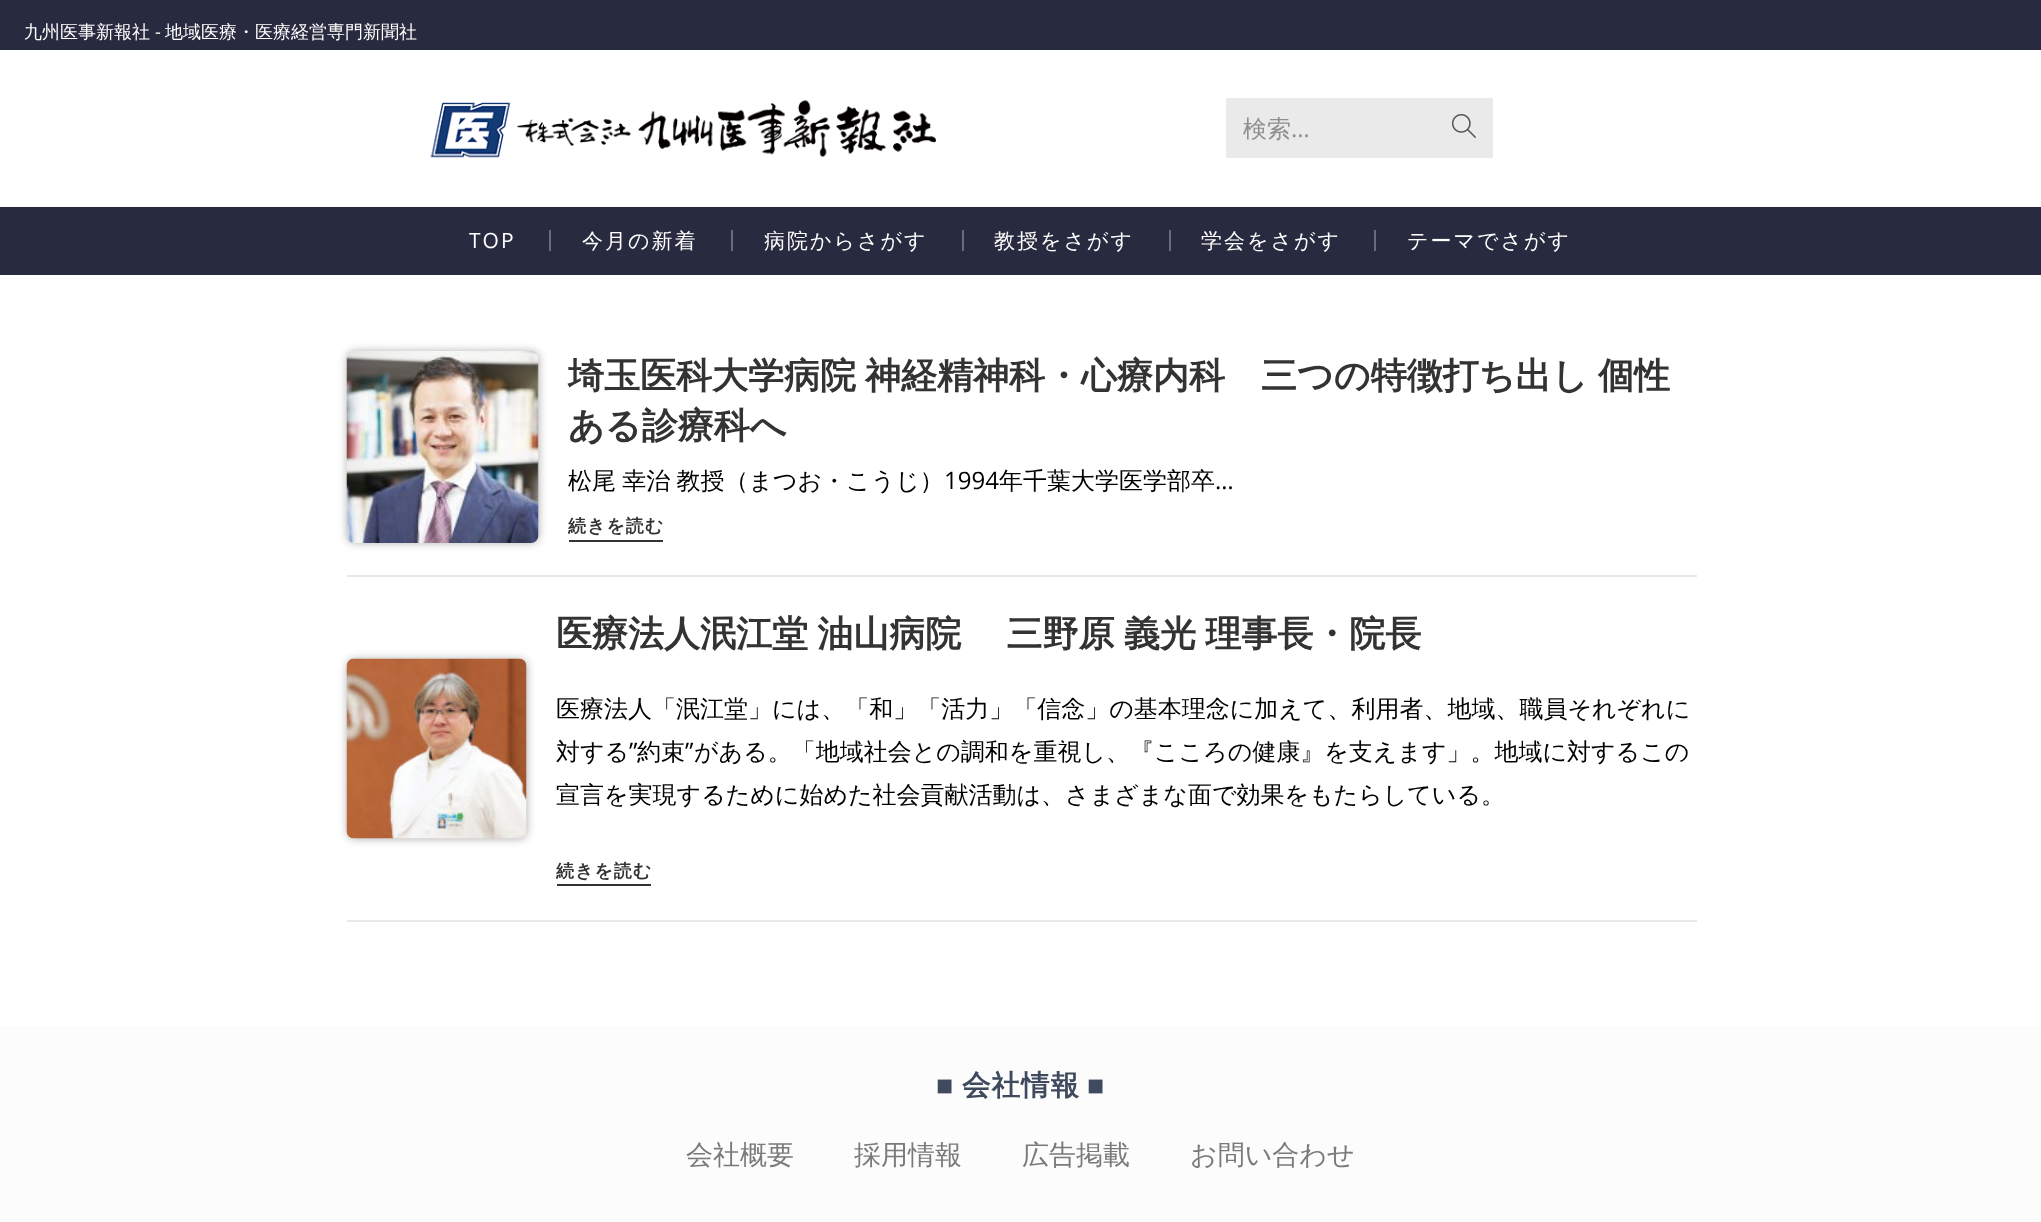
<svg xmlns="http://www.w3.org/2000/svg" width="2041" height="1222">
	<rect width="100%" height="100%" fill="#FFFFFF" />
	<rect x="0" y="0" width="2041" height="50" fill="#282B3F" />
	<text x="24" y="38" font-family="WenQuanYi Zen Hei" font-size="18" font-weight="500" fill="#FFFFFF">九州医事新報社</text>
	<text x="155" y="38" font-family="Open Sans" font-size="18" fill="#FFFFFF">-</text>
	<text x="165" y="38" font-family="WenQuanYi Zen Hei" font-size="18" font-weight="500" fill="#FFFFFF">地域医療・医療経営専門新聞社</text>
	<image x="430" y="100" width="506" height="58" href="assets/img1.png" />
	<rect x="1226" y="98" width="267" height="60" fill="#EAEAEA" />
	<text x="1243" y="137" font-family="WenQuanYi Zen Hei" font-size="24" font-weight="500" fill="#8F8F8F">検索</text>
	<text x="1291" y="137" font-family="Open Sans" font-size="24" fill="#8F8F8F">…</text>
	<image x="1451" y="114" width="25" height="24" href="assets/img2.png" />
	<rect x="0" y="207" width="2041" height="68" fill="#282B3F" />
	<text x="469" y="248" font-family="Open Sans" font-size="21" letter-spacing="2" fill="#FFFFFF">TOP</text>
	<rect x="549" y="230" width="2" height="21" fill="#696B79" />
	<text x="582" y="248" font-family="WenQuanYi Zen Hei" font-size="21" font-weight="500" letter-spacing="2" fill="#FFFFFF">今月の新着</text>
	<rect x="731" y="230" width="2" height="21" fill="#696B79" />
	<text x="764" y="248" font-family="WenQuanYi Zen Hei" font-size="21" font-weight="500" letter-spacing="2" fill="#FFFFFF">病院からさがす</text>
	<rect x="962" y="230" width="2" height="21" fill="#696B79" />
	<text x="994" y="248" font-family="WenQuanYi Zen Hei" font-size="21" font-weight="500" letter-spacing="2" fill="#FFFFFF">教授をさがす</text>
	<rect x="1169" y="230" width="2" height="21" fill="#696B79" />
	<text x="1201" y="248" font-family="WenQuanYi Zen Hei" font-size="21" font-weight="500" letter-spacing="2" fill="#FFFFFF">学会をさがす</text>
	<rect x="1374" y="230" width="2" height="21" fill="#696B79" />
	<text x="1407" y="248" font-family="WenQuanYi Zen Hei" font-size="21" font-weight="500" letter-spacing="2" fill="#FFFFFF">テーマでさがす</text>
	<rect x="347" y="575" width="1350" height="2" fill="#E9E9E9" />
	<rect x="347" y="351" width="192" height="192" rx="8" fill="#000000" fill-opacity="0.3" filter="blur(4px)" />
	<image x="346" y="351" width="193" height="192" href="assets/img3.png" />
	<g font-family="WenQuanYi Zen Hei" font-size="36" font-weight="700" fill="#333333">
		<text x="568" y="388">埼玉医科大学病院</text>
		<text x="865" y="388">神経精神科・心療内科　三つの特徴打ち出し</text>
		<text x="1598" y="388">個性</text>
		<text x="568" y="438">ある診療科へ</text>
	</g>
	<text x="568" y="489" word-spacing="-1" font-family="WenQuanYi Zen Hei" font-size="24" font-weight="500" fill="#000000">松尾 幸治 教授（まつお・こうじ）</text>
	<text x="944" y="489" font-family="Open Sans" font-size="24" fill="#000000">1994</text>
	<text x="999" y="489" font-family="WenQuanYi Zen Hei" font-size="24" font-weight="500" fill="#000000">年千葉大学医学部卒</text>
	<text x="1215" y="489" font-family="Open Sans" font-size="24" fill="#000000">…</text>
	<rect x="569" y="540" width="94" height="2" fill="#333333" />
	<text x="568" y="532" font-family="WenQuanYi Zen Hei" font-size="18" font-weight="700" letter-spacing="1" fill="#333333">続きを読む</text>
	<rect x="347" y="920" width="1350" height="2" fill="#E9E9E9" />
	<rect x="347" y="659" width="180" height="180" rx="8" fill="#000000" fill-opacity="0.3" filter="blur(4px)" />
	<image x="346" y="658" width="181" height="181" href="assets/img4.png" />
	<text x="556" y="646" word-spacing="-1.5" font-family="WenQuanYi Zen Hei" font-size="36" font-weight="700" fill="#333333">医療法人泯江堂 油山病院　 三野原 義光 理事長・院長</text>
	<g font-family="WenQuanYi Zen Hei" font-size="24" font-weight="500" fill="#000000">
		<text x="556" y="717">医療法人「泯江堂」には、「和」「活力」「信念」の基本理念に加えて、利用者、地域、職員それぞれに</text>
		<text x="556" y="760">対する</text>
	</g>
	<text x="629" y="760" font-family="Open Sans" font-size="24" fill="#000000">”</text>
	<text x="637" y="760" font-family="WenQuanYi Zen Hei" font-size="24" font-weight="500" fill="#000000">約束</text>
	<text x="685" y="760" font-family="Open Sans" font-size="24" fill="#000000">”</text>
	<g font-family="WenQuanYi Zen Hei" font-size="24" font-weight="500" fill="#000000">
		<text x="694" y="760">がある。「地域社会との調和を重視し、『こころの健康』を支えます」。地域に対するこの</text>
		<text x="556" y="803">宣言を実現するために始めた社会貢献活動は、さまざまな面で効果をもたらしている。</text>
	</g>
	<rect x="557" y="884" width="94" height="2" fill="#333333" />
	<text x="556" y="877" font-family="WenQuanYi Zen Hei" font-size="18" font-weight="700" letter-spacing="1" fill="#333333">続きを読む</text>
	<rect x="0" y="1026" width="2041" height="196" fill="#FCFCFC" />
	<text x="936" y="1095" font-family="Liberation Sans" font-size="28.5" font-weight="700" letter-spacing="1" fill="#3F4A5E">■</text>
	<text x="962" y="1095" font-family="WenQuanYi Zen Hei" font-size="28.5" font-weight="700" letter-spacing="1" fill="#3F4A5E">会社情報</text>
	<text x="1087" y="1095" font-family="Liberation Sans" font-size="28.5" font-weight="700" letter-spacing="1" fill="#3F4A5E">■</text>
	<g font-family="WenQuanYi Zen Hei" font-size="27" font-weight="500" fill="#7A7A7A">
		<text x="686" y="1164">会社概要</text>
		<text x="854" y="1164">採用情報</text>
		<text x="1022" y="1164">広告掲載</text>
		<text x="1190" y="1164">お問い合わせ</text>
	</g>
</svg>
